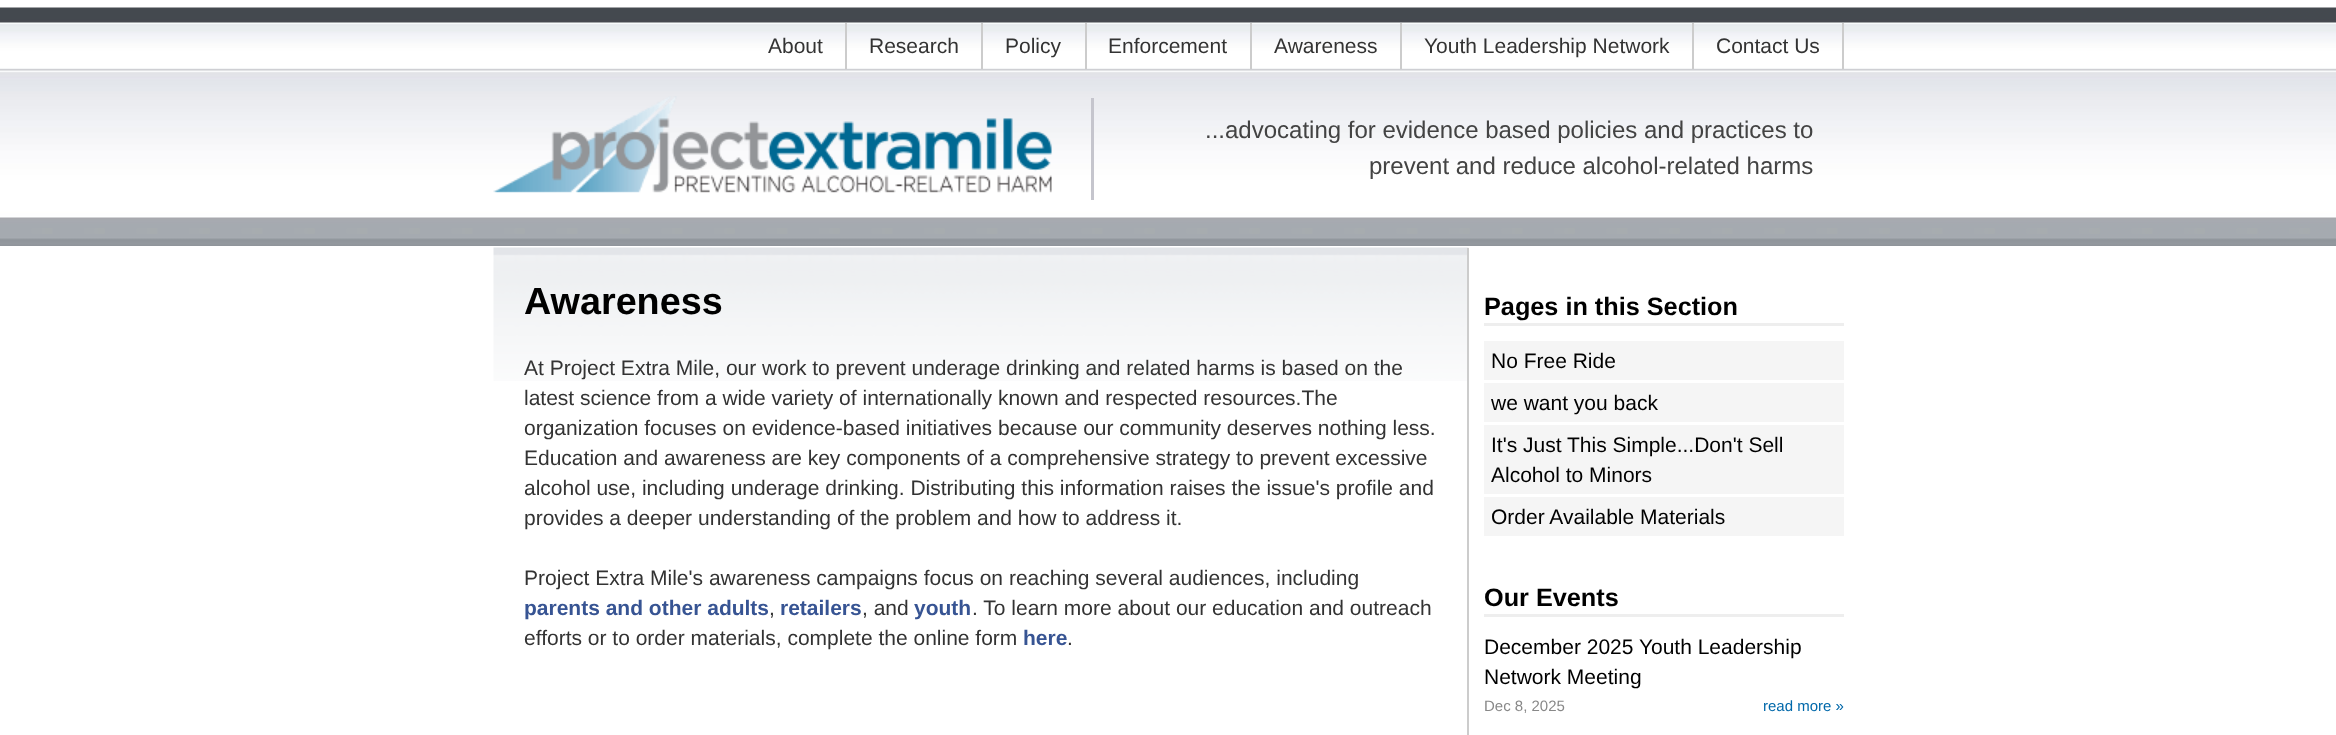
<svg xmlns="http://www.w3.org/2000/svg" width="2336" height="735">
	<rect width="100%" height="100%" fill="#FFFFFF" />
	<image x="0" y="7" width="2336" height="239" href="assets/img1.png" />
	<rect x="845" y="23" width="2" height="46" fill="#CCCCCC" />
	<text x="768" y="53" font-family="Liberation Sans" font-size="21" fill="#333333">About</text>
	<rect x="981" y="23" width="2" height="46" fill="#CCCCCC" />
	<text x="869" y="53" font-family="Liberation Sans" font-size="21" fill="#333333">Research</text>
	<rect x="1085" y="23" width="2" height="46" fill="#CCCCCC" />
	<text x="1005" y="53" font-family="Liberation Sans" font-size="21" fill="#333333">Policy</text>
	<rect x="1250" y="23" width="2" height="46" fill="#CCCCCC" />
	<text x="1108" y="53" font-family="Liberation Sans" font-size="21" fill="#333333">Enforcement</text>
	<rect x="1400" y="23" width="2" height="46" fill="#CCCCCC" />
	<text x="1274" y="53" font-family="Liberation Sans" font-size="21" fill="#333333">Awareness</text>
	<rect x="1692" y="23" width="2" height="46" fill="#CCCCCC" />
	<text x="1424" y="53" font-family="Liberation Sans" font-size="21" fill="#333333">Youth Leadership Network</text>
	<rect x="1842" y="23" width="2" height="46" fill="#CCCCCC" />
	<text x="1716" y="53" font-family="Liberation Sans" font-size="21" fill="#333333">Contact Us</text>
	<image x="493" y="96" width="559" height="97" href="assets/img2.png" />
	<rect x="1091" y="98" width="3" height="102" fill="#C5C5CD" />
	<g font-family="Liberation Sans" font-size="24" fill="#434343">
		<text x="1205" y="138">...advocating for evidence based policies and practices to</text>
		<text x="1369" y="174">prevent and reduce alcohol-related harms</text>
	</g>
	<image x="493" y="247" width="976" height="134" href="assets/img3.png" />
	<rect x="1467" y="248" width="2" height="487" fill="#CCCCCC" />
	<text x="524" y="314" font-family="Liberation Sans" font-size="37.75" font-weight="700" fill="#000000">Awareness</text>
	<g font-family="Liberation Sans" font-size="21" fill="#333333">
		<text x="524" y="375">At Project Extra Mile, our work to prevent underage drinking and related harms is based on the</text>
		<text x="524" y="405">latest science from a wide variety of internationally known and respected resources.The</text>
		<text x="524" y="435">organization focuses on evidence-based initiatives because our community deserves nothing less.</text>
		<text x="524" y="465">Education and awareness are key components of a comprehensive strategy to prevent excessive</text>
		<text x="524" y="495">alcohol use, including underage drinking. Distributing this information raises the issue's profile and</text>
		<text x="524" y="525">provides a deeper understanding of the problem and how to address it.</text>
		<text x="524" y="585">Project Extra Mile's awareness campaigns focus on reaching several audiences, including</text>
	</g>
	<text x="524" y="615" font-family="Liberation Sans" font-size="21" font-weight="700" fill="#375493">parents and other adults</text>
	<text x="769" y="615" font-family="Liberation Sans" font-size="21" fill="#333333">,</text>
	<text x="780" y="615" font-family="Liberation Sans" font-size="21" font-weight="700" fill="#375493">retailers</text>
	<text x="862" y="615" font-family="Liberation Sans" font-size="21" fill="#333333">, and</text>
	<text x="914" y="615" font-family="Liberation Sans" font-size="21" font-weight="700" fill="#375493">youth</text>
	<g font-family="Liberation Sans" font-size="21" fill="#333333">
		<text x="972" y="615">. To learn more about our education and outreach</text>
		<text x="524" y="645">efforts or to order materials, complete the online form</text>
	</g>
	<text x="1023" y="645" font-family="Liberation Sans" font-size="21" font-weight="700" fill="#375493">here</text>
	<text x="1067" y="645" font-family="Liberation Sans" font-size="21" fill="#333333">.</text>
	<rect x="1484" y="323" width="360" height="3" fill="#EEEEEE" />
	<text x="1484" y="315" font-family="Liberation Sans" font-size="25.25" font-weight="700" fill="#000000">Pages in this Section</text>
	<rect x="1484" y="341" width="360" height="39" fill="#F5F5F5" />
	<text x="1491" y="368" font-family="Liberation Sans" font-size="21" fill="#000000">No Free Ride</text>
	<rect x="1484" y="383" width="360" height="39" fill="#F5F5F5" />
	<text x="1491" y="410" font-family="Liberation Sans" font-size="21" fill="#000000">we want you back</text>
	<rect x="1484" y="425" width="360" height="69" fill="#F5F5F5" />
	<g font-family="Liberation Sans" font-size="21" fill="#000000">
		<text x="1491" y="452">It's Just This Simple...Don't Sell</text>
		<text x="1491" y="482">Alcohol to Minors</text>
	</g>
	<rect x="1484" y="497" width="360" height="39" fill="#F5F5F5" />
	<text x="1491" y="524" font-family="Liberation Sans" font-size="21" fill="#000000">Order Available Materials</text>
	<rect x="1484" y="614" width="360" height="3" fill="#EEEEEE" />
	<text x="1484" y="606" font-family="Liberation Sans" font-size="25.25" font-weight="700" fill="#000000">Our Events</text>
	<g font-family="Liberation Sans" font-size="21" fill="#000000">
		<text x="1484" y="654">December 2025 Youth Leadership</text>
		<text x="1484" y="684">Network Meeting</text>
	</g>
	<text x="1484" y="711" font-family="Liberation Sans" font-size="15" fill="#888888">Dec 8, 2025</text>
	<text x="1763" y="711" font-family="Liberation Sans" font-size="15" fill="#0068AA">read more »</text>
</svg>
